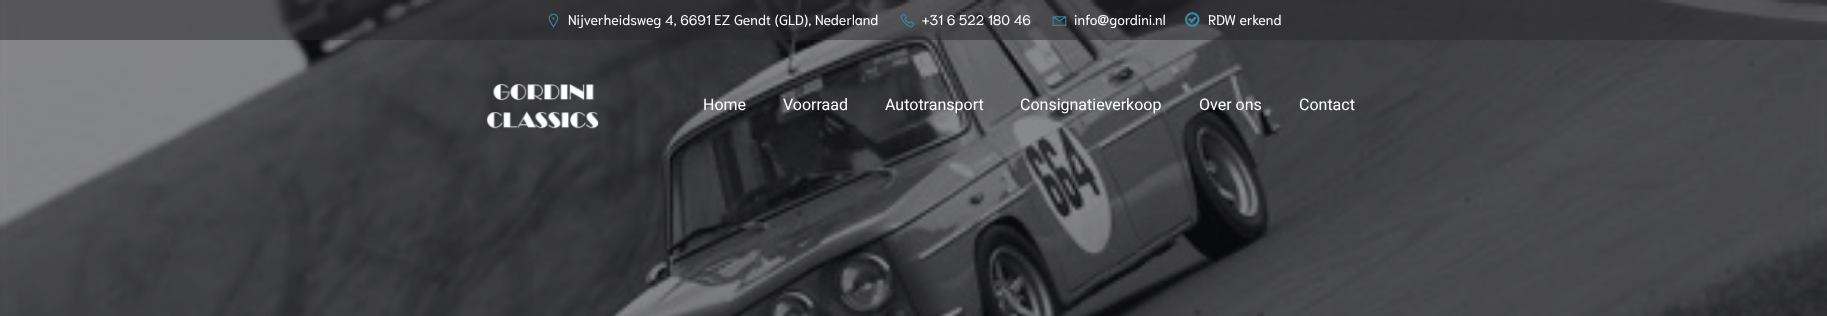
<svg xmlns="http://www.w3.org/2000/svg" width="1827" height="316">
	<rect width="100%" height="100%" fill="#FFFFFF" />
	<image x="0" y="0" width="1827" height="316" href="assets/img1.png" />
	<rect x="0" y="0" width="1827" height="40" fill="#27282A" fill-opacity="0.5" />
	<image x="548" y="13" width="11" height="15" href="assets/img2.png" />
	<text x="568" y="25" font-family="Niramit" font-size="14" fill="#FFFFFF">Nijverheidsweg 4, 6691 EZ Gendt (GLD), Nederland</text>
	<image x="900" y="13" width="15" height="15" href="assets/img3.png" />
	<text x="922" y="25" font-family="Niramit" font-size="14" fill="#FFFFFF">+31 6 522 180 46</text>
	<image x="1052" y="16" width="15" height="10" href="assets/img4.png" />
	<text x="1074" y="25" font-family="Niramit" font-size="14" fill="#FFFFFF">info@gordini.nl</text>
	<image x="1185" y="12" width="15" height="15" href="assets/img5.png" />
	<text x="1208" y="25" font-family="Niramit" font-size="14" fill="#FFFFFF">RDW erkend</text>
	<image x="486" y="83" width="113" height="46" href="assets/img6.png" />
	<g font-family="Roboto" font-size="16" fill="#FFFFFF">
		<text x="703" y="110">Home</text>
		<text x="783" y="110">Voorraad</text>
		<text x="885" y="110">Autotransport</text>
		<text x="1020" y="110">Consignatieverkoop</text>
		<text x="1199" y="110">Over ons</text>
		<text x="1299" y="110">Contact</text>
	</g>
</svg>
